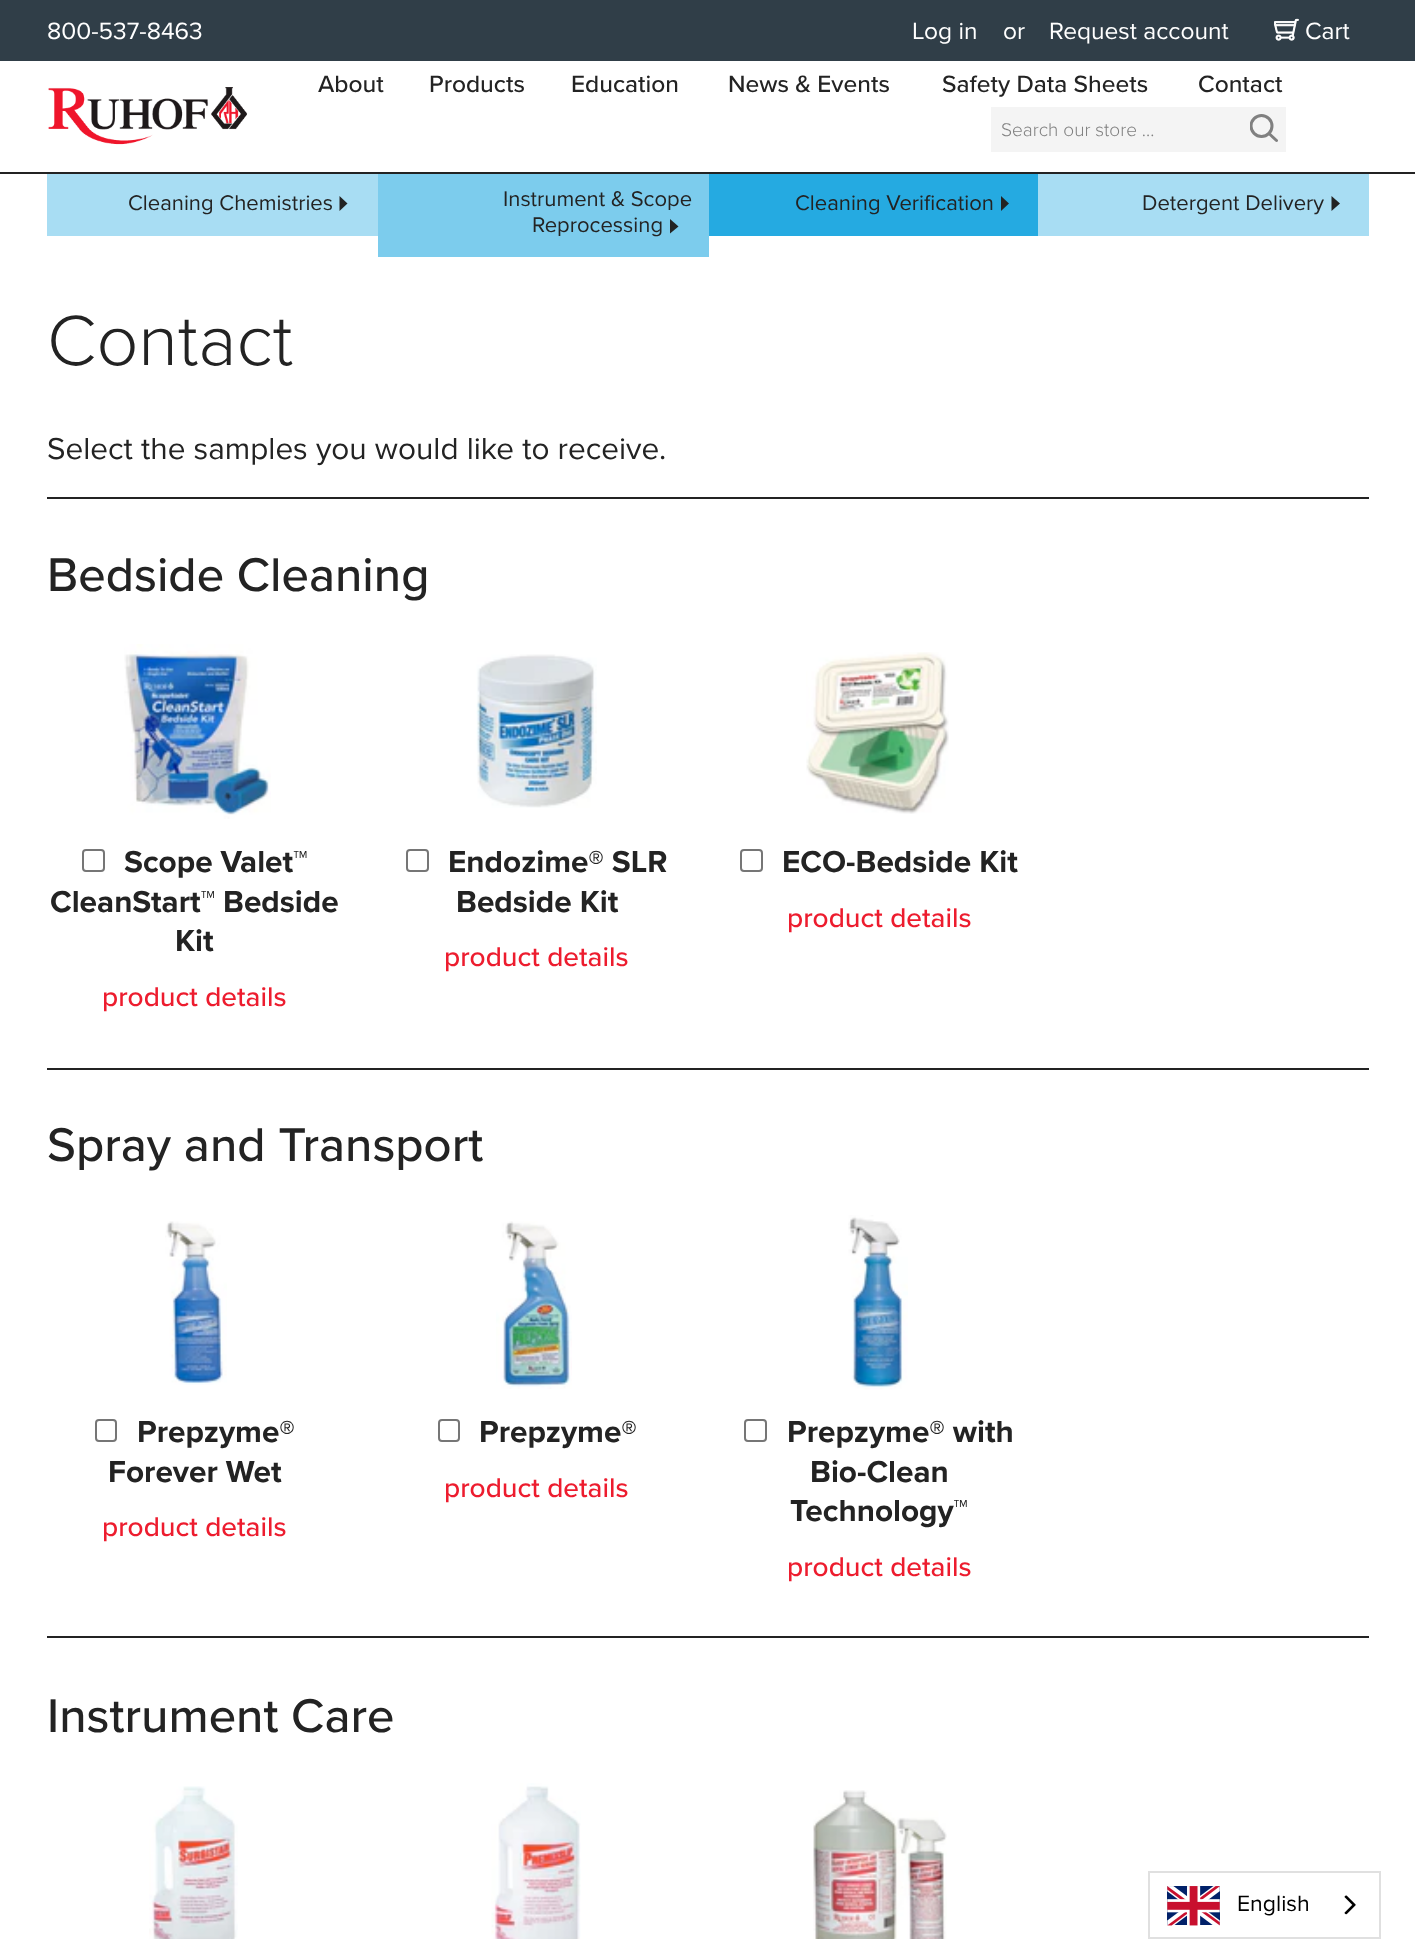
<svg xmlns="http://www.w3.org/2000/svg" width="1415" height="1939">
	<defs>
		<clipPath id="clip1"><rect x="1250" y="114" width="29" height="30" /></clipPath>
	</defs>
	<rect width="100%" height="100%" fill="#FFFFFF" />
	<rect x="0" y="0" width="1415" height="61" fill="#303E48" />
	<g font-family="Proxima Nova" font-size="24.5" fill="#FFFFFF">
		<text x="47" y="39">800-537-8463</text>
		<text x="912" y="39">Log in</text>
		<text x="1003" y="39">or</text>
		<text x="1049" y="39">Request account</text>
	</g>
	<image x="1274" y="18" width="25" height="23" href="assets/img1.png" />
	<text x="1305" y="39" font-family="Proxima Nova" font-size="24.5" fill="#FFFFFF">Cart</text>
	<rect x="0" y="172" width="1415" height="2" fill="#232323" />
	<image x="48" y="87" width="200" height="58" href="assets/img2.png" />
	<g font-family="Proxima Nova" font-size="24.5" font-weight="500" fill="#232323">
		<text x="318" y="92">About</text>
		<text x="429" y="92">Products</text>
		<text x="571" y="92">Education</text>
		<text x="728" y="92">News &amp; Events</text>
		<text x="942" y="92">Safety Data Sheets</text>
		<text x="1198" y="92">Contact</text>
	</g>
	<rect x="991" y="107" width="295" height="45" fill="#F4F4F4" />
	<text x="1001" y="136" font-family="Proxima Nova" font-size="19" font-weight="300" fill="#808080">Search our store ...</text>
	<g clip-path="url(#clip1)">
		<circle cx="1261.5" cy="126" r="10.5" fill="none" stroke="#808080" stroke-width="3" />
	</g>
	<path d="M1276.5 140.5L1269 133.5" fill="none" stroke="#808080" stroke-width="3" stroke-linecap="round" />
	<rect x="47" y="174" width="331" height="62" fill="#A8DDF3" />
	<text x="128" y="210" font-family="Proxima Nova" font-size="22" fill="#232323">Cleaning Chemistries</text>
	<path d="M339.5 196V211L347.5 203.5Z" fill="#232323" />
	<rect x="378" y="174" width="331" height="83" fill="#7CCCED" />
	<g font-family="Proxima Nova" font-size="22" fill="#232323">
		<text x="503" y="206">Instrument &amp; Scope</text>
		<text x="532" y="232">Reprocessing</text>
	</g>
	<path d="M670 219V233.5L678.5 226.5Z" fill="#232323" />
	<rect x="709" y="174" width="329" height="62" fill="#25AAE1" />
	<text x="795" y="210" font-family="Proxima Nova" font-size="22" fill="#232323">Cleaning Verification</text>
	<path d="M1001 196V211L1009 203.5Z" fill="#232323" />
	<rect x="1038" y="174" width="331" height="62" fill="#A8DDF3" />
	<text x="1142" y="210" font-family="Proxima Nova" font-size="22" fill="#232323">Detergent Delivery</text>
	<path d="M1331.5 196V211L1340 203.5Z" fill="#232323" />
	<text x="47" y="365" font-family="Proxima Nova" font-size="73.5" font-weight="300" fill="#232323">Contact</text>
	<text x="47" y="459" font-family="Proxima Nova" font-size="31.5" fill="#232323">Select the samples you would like to receive.</text>
	<rect x="47" y="497" width="1322" height="2" fill="#232323" />
	<text x="47" y="591" font-family="Proxima Nova" font-size="49" font-weight="500" fill="#232323">Bedside Cleaning</text>
	<image x="124" y="644" width="147" height="175" href="assets/img3.png" />
	<rect x="83" y="850" width="21" height="21" rx="3" fill="none" stroke="#767676" stroke-width="2" />
	<g font-family="Proxima Nova" font-size="31.5" font-weight="700" fill="#232323">
		<text x="124" y="872">Scope Valet™</text>
		<text x="50" y="912">CleanStart™ Bedside</text>
		<text x="175" y="951">Kit</text>
	</g>
	<text x="102" y="1006" font-family="Proxima Nova" font-size="28" font-weight="500" fill="#ED1C2E">product details</text>
	<image x="476" y="654" width="121" height="154" href="assets/img4.png" />
	<rect x="407" y="850" width="21" height="21" rx="3" fill="none" stroke="#767676" stroke-width="2" />
	<g font-family="Proxima Nova" font-size="31.5" font-weight="700" fill="#232323">
		<text x="448" y="872">Endozime® SLR</text>
		<text x="456" y="912">Bedside Kit</text>
	</g>
	<text x="444" y="966" font-family="Proxima Nova" font-size="28" font-weight="500" fill="#ED1C2E">product details</text>
	<image x="806" y="652" width="143" height="162" href="assets/img5.png" />
	<rect x="741" y="850" width="21" height="21" rx="3" fill="none" stroke="#767676" stroke-width="2" />
	<text x="782" y="872" font-family="Proxima Nova" font-size="31.5" font-weight="700" fill="#232323">ECO-Bedside Kit</text>
	<text x="787" y="927" font-family="Proxima Nova" font-size="28" font-weight="500" fill="#ED1C2E">product details</text>
	<rect x="47" y="1068" width="1322" height="2" fill="#232323" />
	<text x="47" y="1161" font-family="Proxima Nova" font-size="49" font-weight="500" fill="#232323">Spray and Transport</text>
	<image x="165" y="1221" width="62" height="164" href="assets/img6.png" />
	<rect x="96" y="1420" width="20" height="21" rx="3" fill="none" stroke="#767676" stroke-width="2" />
	<g font-family="Proxima Nova" font-size="31.5" font-weight="700" fill="#232323">
		<text x="137" y="1442">Prepzyme®</text>
		<text x="108" y="1482">Forever Wet</text>
	</g>
	<text x="102" y="1536" font-family="Proxima Nova" font-size="28" font-weight="500" fill="#ED1C2E">product details</text>
	<image x="496" y="1221" width="76" height="168" href="assets/img7.png" />
	<rect x="439" y="1420" width="20" height="21" rx="3" fill="none" stroke="#767676" stroke-width="2" />
	<text x="479" y="1442" font-family="Proxima Nova" font-size="31.5" font-weight="700" fill="#232323">Prepzyme®</text>
	<text x="444" y="1497" font-family="Proxima Nova" font-size="28" font-weight="500" fill="#ED1C2E">product details</text>
	<image x="848" y="1215" width="60" height="175" href="assets/img8.png" />
	<rect x="745" y="1420" width="21" height="21" rx="3" fill="none" stroke="#767676" stroke-width="2" />
	<g font-family="Proxima Nova" font-size="31.5" font-weight="700" fill="#232323">
		<text x="787" y="1442">Prepzyme® with</text>
		<text x="810" y="1482">Bio-Clean</text>
		<text x="790" y="1521">Technology™</text>
	</g>
	<text x="787" y="1576" font-family="Proxima Nova" font-size="28" font-weight="500" fill="#ED1C2E">product details</text>
	<rect x="47" y="1636" width="1322" height="2" fill="#232323" />
	<text x="47" y="1732" font-family="Proxima Nova" font-size="49" font-weight="500" fill="#232323">Instrument Care</text>
	<image x="149" y="1786" width="89" height="153" href="assets/img9.png" />
	<image x="491" y="1783" width="90" height="156" href="assets/img10.png" />
	<image x="813" y="1790" width="134" height="149" href="assets/img11.png" />
	<rect x="1149" y="1872" width="231" height="66" fill="none" stroke="#E0E0E0" stroke-width="2" />
	<image x="1167" y="1886" width="53" height="40" href="assets/img12.png" />
	<text x="1237" y="1911" font-family="Proxima Nova" font-size="23" fill="#000000">English</text>
	<image x="1344" y="1895" width="12" height="20" href="assets/img13.png" />
</svg>
